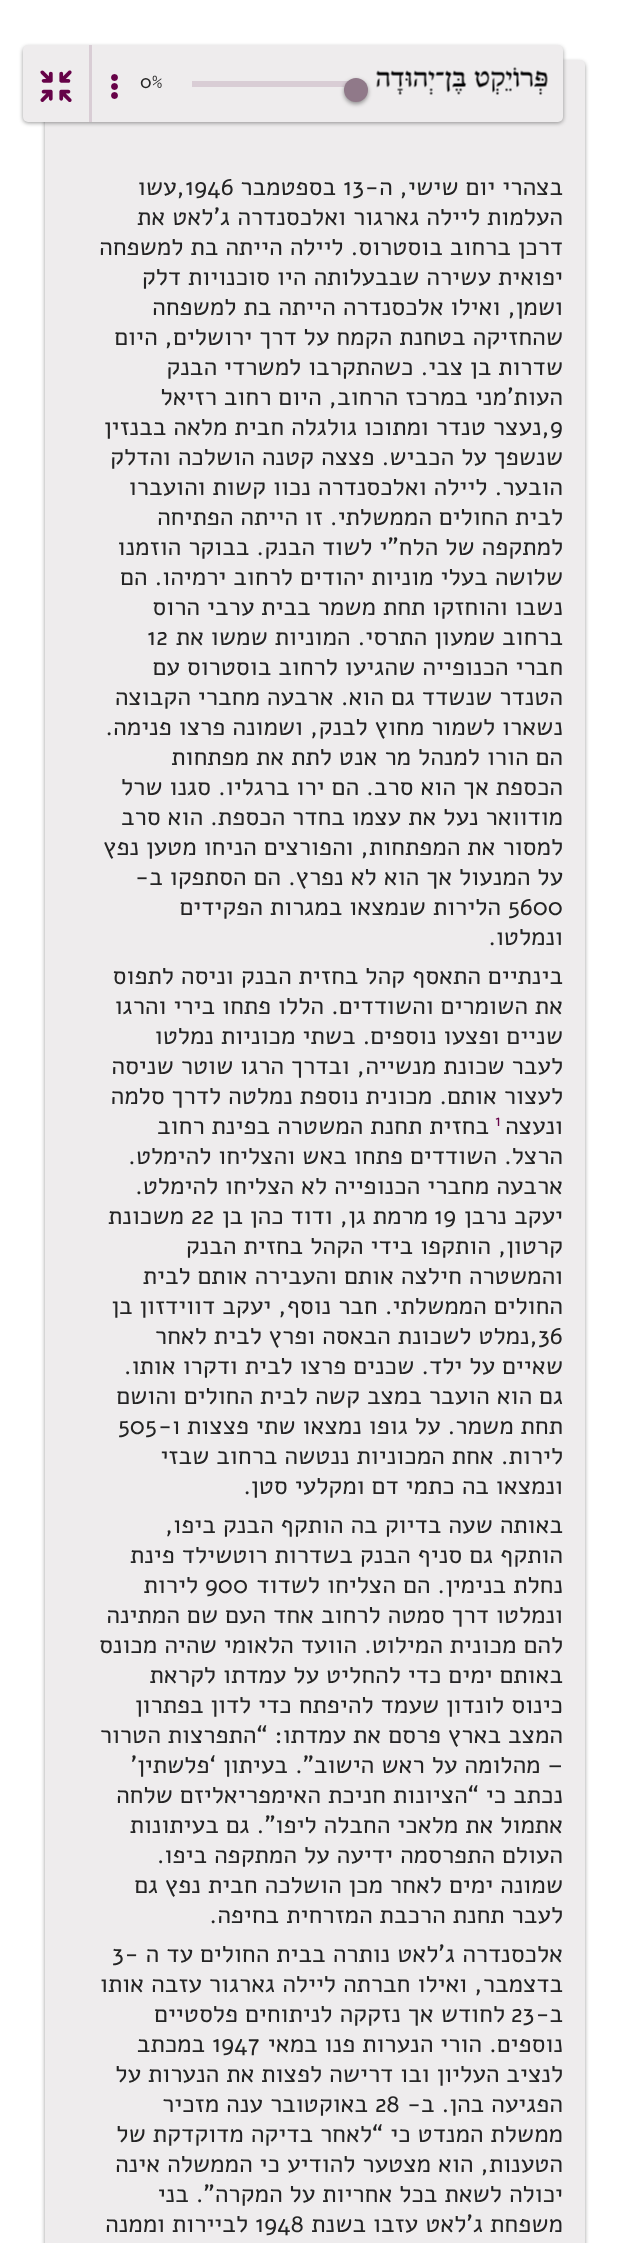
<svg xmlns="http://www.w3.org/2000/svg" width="630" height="2243">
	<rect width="100%" height="100%" fill="#FFFFFF" />
	<rect x="45" y="62" width="540" height="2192" rx="5" fill="#000000" fill-opacity="0.4" filter="blur(2px)" />
	<rect x="45" y="60" width="540" height="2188" rx="5" fill="#EEECED" />
	<rect x="23" y="47" width="540" height="76" rx="5" fill="#000000" fill-opacity="0.4" filter="blur(2px)" />
	<rect x="23" y="45" width="540" height="77" rx="5" fill="#EEECED" />
	<image x="376" y="67" width="172" height="28" href="assets/img1.png" />
	<rect x="192" y="81" width="164" height="6" fill="#D9CDD5" />
	<rect x="344" y="80" width="24" height="24" rx="12" fill="#000000" fill-opacity="0.4" filter="blur(2px)" />
	<circle cx="356" cy="90" r="12" fill="#907989" />
	<text x="140" y="88" font-family="Alef" font-size="19" fill="#242424">0%</text>
	<text x="101" y="100" font-family="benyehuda" font-size="27" fill="#660248">Y</text>
	<rect x="89" y="45" width="3" height="77" fill="#D9CDD5" />
	<text x="38" y="104" font-family="benyehuda" font-size="36" fill="#660248">.</text>
	<text x="563" y="195" font-family="Alef" font-size="24.75" direction="rtl" fill="#242424">בצהרי יום שישי, ה-</text>
	<text x="343" y="195" font-family="Alef" font-size="24.75" fill="#242424">13</text>
	<text x="336" y="195" font-family="Alef" font-size="24.75" direction="rtl" fill="#242424">בספטמבר</text>
	<text x="185" y="195" font-family="Alef" font-size="24.75" fill="#242424">1946</text>
	<g font-family="Alef" font-size="24.75" direction="rtl" fill="#242424">
		<text x="185" y="195">,עשו</text>
		<text x="563" y="225">העלמות ליילה גארגור ואלכסנדרה ג’לאט את</text>
		<text x="563" y="255">דרכן ברחוב בוסטרוס. ליילה הייתה בת למשפחה</text>
		<text x="563" y="285">יפואית עשירה שבבעלותה היו סוכנויות דלק</text>
		<text x="563" y="315">ושמן, ואילו אלכסנדרה הייתה בת למשפחה</text>
		<text x="563" y="345">שהחזיקה בטחנת הקמח על דרך ירושלים, היום</text>
		<text x="563" y="375">שדרות בן צבי. כשהתקרבו למשרדי הבנק</text>
		<text x="563" y="405">העות’מני במרכז הרחוב, היום רחוב רזיאל</text>
	</g>
	<text x="550" y="435" font-family="Alef" font-size="24.75" fill="#242424">9</text>
	<g font-family="Alef" font-size="24.75" direction="rtl" fill="#242424">
		<text x="550" y="435">,נעצר טנדר ומתוכו גולגלה חבית מלאה בבנזין</text>
		<text x="563" y="465">שנשפך על הכביש. פצצה קטנה הושלכה והדלק</text>
		<text x="563" y="495">הובער. ליילה ואלכסנדרה נכוו קשות והועברו</text>
		<text x="563" y="525">לבית החולים הממשלתי. זו הייתה הפתיחה</text>
		<text x="563" y="555">למתקפה של הלח"י לשוד הבנק. בבוקר הוזמנו</text>
		<text x="563" y="585">שלושה בעלי מוניות יהודים לרחוב ירמיהו. הם</text>
		<text x="563" y="615">נשבו והוחזקו תחת משמר בבית ערבי הרוס</text>
		<text x="563" y="645">ברחוב שמעון התרסי. המוניות שמשו את</text>
	</g>
	<text x="147" y="645" font-family="Alef" font-size="24.75" fill="#242424">12</text>
	<g font-family="Alef" font-size="24.75" direction="rtl" fill="#242424">
		<text x="563" y="675">חברי הכנופייה שהגיעו לרחוב בוסטרוס עם</text>
		<text x="563" y="705">הטנדר שנשדד גם הוא. ארבעה מחברי הקבוצה</text>
		<text x="563" y="735">נשארו לשמור מחוץ לבנק, ושמונה פרצו פנימה.</text>
		<text x="563" y="765">הם הורו למנהל מר אנט לתת את מפתחות</text>
		<text x="563" y="795">הכספת אך הוא סרב. הם ירו ברגליו. סגנו שרל</text>
		<text x="563" y="825">מודוואר נעל את עצמו בחדר הכספת. הוא סרב</text>
		<text x="563" y="855">למסור את המפתחות, והפורצים הניחו מטען נפץ</text>
		<text x="563" y="885">על המנעול אך הוא לא נפרץ. הם הסתפקו ב-</text>
	</g>
	<text x="508" y="915" font-family="Alef" font-size="24.75" fill="#242424">5600</text>
	<g font-family="Alef" font-size="24.75" direction="rtl" fill="#242424">
		<text x="501" y="915">הלירות שנמצאו במגרות הפקידים</text>
		<text x="563" y="945">ונמלטו.</text>
		<text x="563" y="984">בינתיים התאסף קהל בחזית הבנק וניסה לתפוס</text>
		<text x="563" y="1014">את השומרים והשודדים. הללו פתחו בירי והרגו</text>
		<text x="563" y="1044">שניים ופצעו נוספים. בשתי מכוניות נמלטו</text>
		<text x="563" y="1074">לעבר שכונת מנשייה, ובדרך הרגו שוטר שניסה</text>
		<text x="563" y="1104">לעצור אותם. מכונית נוספת נמלטה לדרך סלמה</text>
		<text x="563" y="1134">ונעצה</text>
	</g>
	<text x="495" y="1126" font-family="Alef" font-size="16" fill="#660248">1</text>
	<g font-family="Alef" font-size="24.75" direction="rtl" fill="#242424">
		<text x="489" y="1134">בחזית תחנת המשטרה בפינת רחוב</text>
		<text x="563" y="1164">הרצל. השודדים פתחו באש והצליחו להימלט.</text>
		<text x="563" y="1194">ארבעה מחברי הכנופייה לא הצליחו להימלט.</text>
		<text x="563" y="1224">יעקב נרבן</text>
	</g>
	<text x="434" y="1224" font-family="Alef" font-size="24.75" fill="#242424">19</text>
	<text x="428" y="1224" font-family="Alef" font-size="24.75" direction="rtl" fill="#242424">מרמת גן, ודוד כהן בן</text>
	<text x="191" y="1224" font-family="Alef" font-size="24.75" fill="#242424">22</text>
	<g font-family="Alef" font-size="24.75" direction="rtl" fill="#242424">
		<text x="184" y="1224">משכונת</text>
		<text x="563" y="1254">קרטון, הותקפו בידי הקהל בחזית הבנק</text>
		<text x="563" y="1284">והמשטרה חילצה אותם והעבירה אותם לבית</text>
		<text x="563" y="1314">החולים הממשלתי. חבר נוסף, יעקב דווידזון בן</text>
	</g>
	<text x="538" y="1344" font-family="Alef" font-size="24.75" fill="#242424">36</text>
	<g font-family="Alef" font-size="24.75" direction="rtl" fill="#242424">
		<text x="538" y="1344">,נמלט לשכונת הבאסה ופרץ לבית לאחר</text>
		<text x="563" y="1374">שאיים על ילד. שכנים פרצו לבית ודקרו אותו.</text>
		<text x="563" y="1404">גם הוא הועבר במצב קשה לבית החולים והושם</text>
		<text x="563" y="1434">תחת משמר. על גופו נמצאו שתי פצצות ו-</text>
	</g>
	<text x="118" y="1434" font-family="Alef" font-size="24.75" fill="#242424">505</text>
	<g font-family="Alef" font-size="24.75" direction="rtl" fill="#242424">
		<text x="563" y="1464">לירות. אחת המכוניות ננטשה ברחוב שבזי</text>
		<text x="563" y="1494">ונמצאו בה כתמי דם ומקלעי סטן.</text>
		<text x="563" y="1533">באותה שעה בדיוק בה הותקף הבנק ביפו,</text>
		<text x="563" y="1563">הותקף גם סניף הבנק בשדרות רוטשילד פינת</text>
		<text x="563" y="1593">נחלת בנימין. הם הצליחו לשדוד</text>
	</g>
	<text x="205" y="1593" font-family="Alef" font-size="24.75" fill="#242424">900</text>
	<g font-family="Alef" font-size="24.75" direction="rtl" fill="#242424">
		<text x="198" y="1593">לירות</text>
		<text x="563" y="1623">ונמלטו דרך סמטה לרחוב אחד העם שם המתינה</text>
		<text x="563" y="1653">להם מכונית המילוט. הוועד הלאומי שהיה מכונס</text>
		<text x="563" y="1683">באותם ימים כדי להחליט על עמדתו לקראת</text>
		<text x="563" y="1713">כינוס לונדון שעמד להיפתח כדי לדון בפתרון</text>
		<text x="563" y="1743">המצב בארץ פרסם את עמדתו: “התפרצות הטרור</text>
		<text x="563" y="1773">– מהלומה על ראש הישוב”. בעיתון ‘פלשתין’</text>
		<text x="563" y="1803">נכתב כי “הציונות חניכת האימפריאליזם שלחה</text>
		<text x="563" y="1833">אתמול את מלאכי החבלה ליפו”. גם בעיתונות</text>
		<text x="563" y="1863">העולם התפרסמה ידיעה על המתקפה ביפו.</text>
		<text x="563" y="1893">שמונה ימים לאחר מכן הושלכה חבית נפץ גם</text>
		<text x="563" y="1923">לעבר תחנת הרכבת המזרחית בחיפה.</text>
		<text x="563" y="1962">אלכסנדרה ג’לאט נותרה בבית החולים עד ה -</text>
	</g>
	<text x="112" y="1962" font-family="Alef" font-size="24.75" fill="#242424">3</text>
	<g font-family="Alef" font-size="24.75" direction="rtl" fill="#242424">
		<text x="563" y="1992">בדצמבר, ואילו חברתה ליילה גארגור עזבה אותו</text>
		<text x="563" y="2022">ב-</text>
	</g>
	<text x="511" y="2022" font-family="Alef" font-size="24.75" fill="#242424">23</text>
	<g font-family="Alef" font-size="24.75" direction="rtl" fill="#242424">
		<text x="505" y="2022">לחודש אך נזקקה לניתוחים פלסטיים</text>
		<text x="563" y="2052">נוספים. הורי הנערות פנו במאי</text>
	</g>
	<text x="212" y="2052" font-family="Alef" font-size="24.75" fill="#242424">1947</text>
	<g font-family="Alef" font-size="24.75" direction="rtl" fill="#242424">
		<text x="205" y="2052">במכתב</text>
		<text x="563" y="2082">לנציב העליון ובו דרישה לפצות את הנערות על</text>
		<text x="563" y="2112">הפגיעה בהן. ב-</text>
	</g>
	<text x="375" y="2112" font-family="Alef" font-size="24.75" fill="#242424">28</text>
	<g font-family="Alef" font-size="24.75" direction="rtl" fill="#242424">
		<text x="368" y="2112">באוקטובר ענה מזכיר</text>
		<text x="563" y="2142">ממשלת המנדט כי “לאחר בדיקה מדוקדקת של</text>
		<text x="563" y="2172">הטענות, הוא מצטער להודיע כי הממשלה אינה</text>
		<text x="563" y="2202">יכולה לשאת בכל אחריות על המקרה”. בני</text>
		<text x="563" y="2232">משפחת ג’לאט עזבו בשנת</text>
	</g>
	<text x="255" y="2232" font-family="Alef" font-size="24.75" fill="#242424">1948</text>
	<text x="248" y="2232" font-family="Alef" font-size="24.75" direction="rtl" fill="#242424">לביירות וממנה</text>
</svg>
